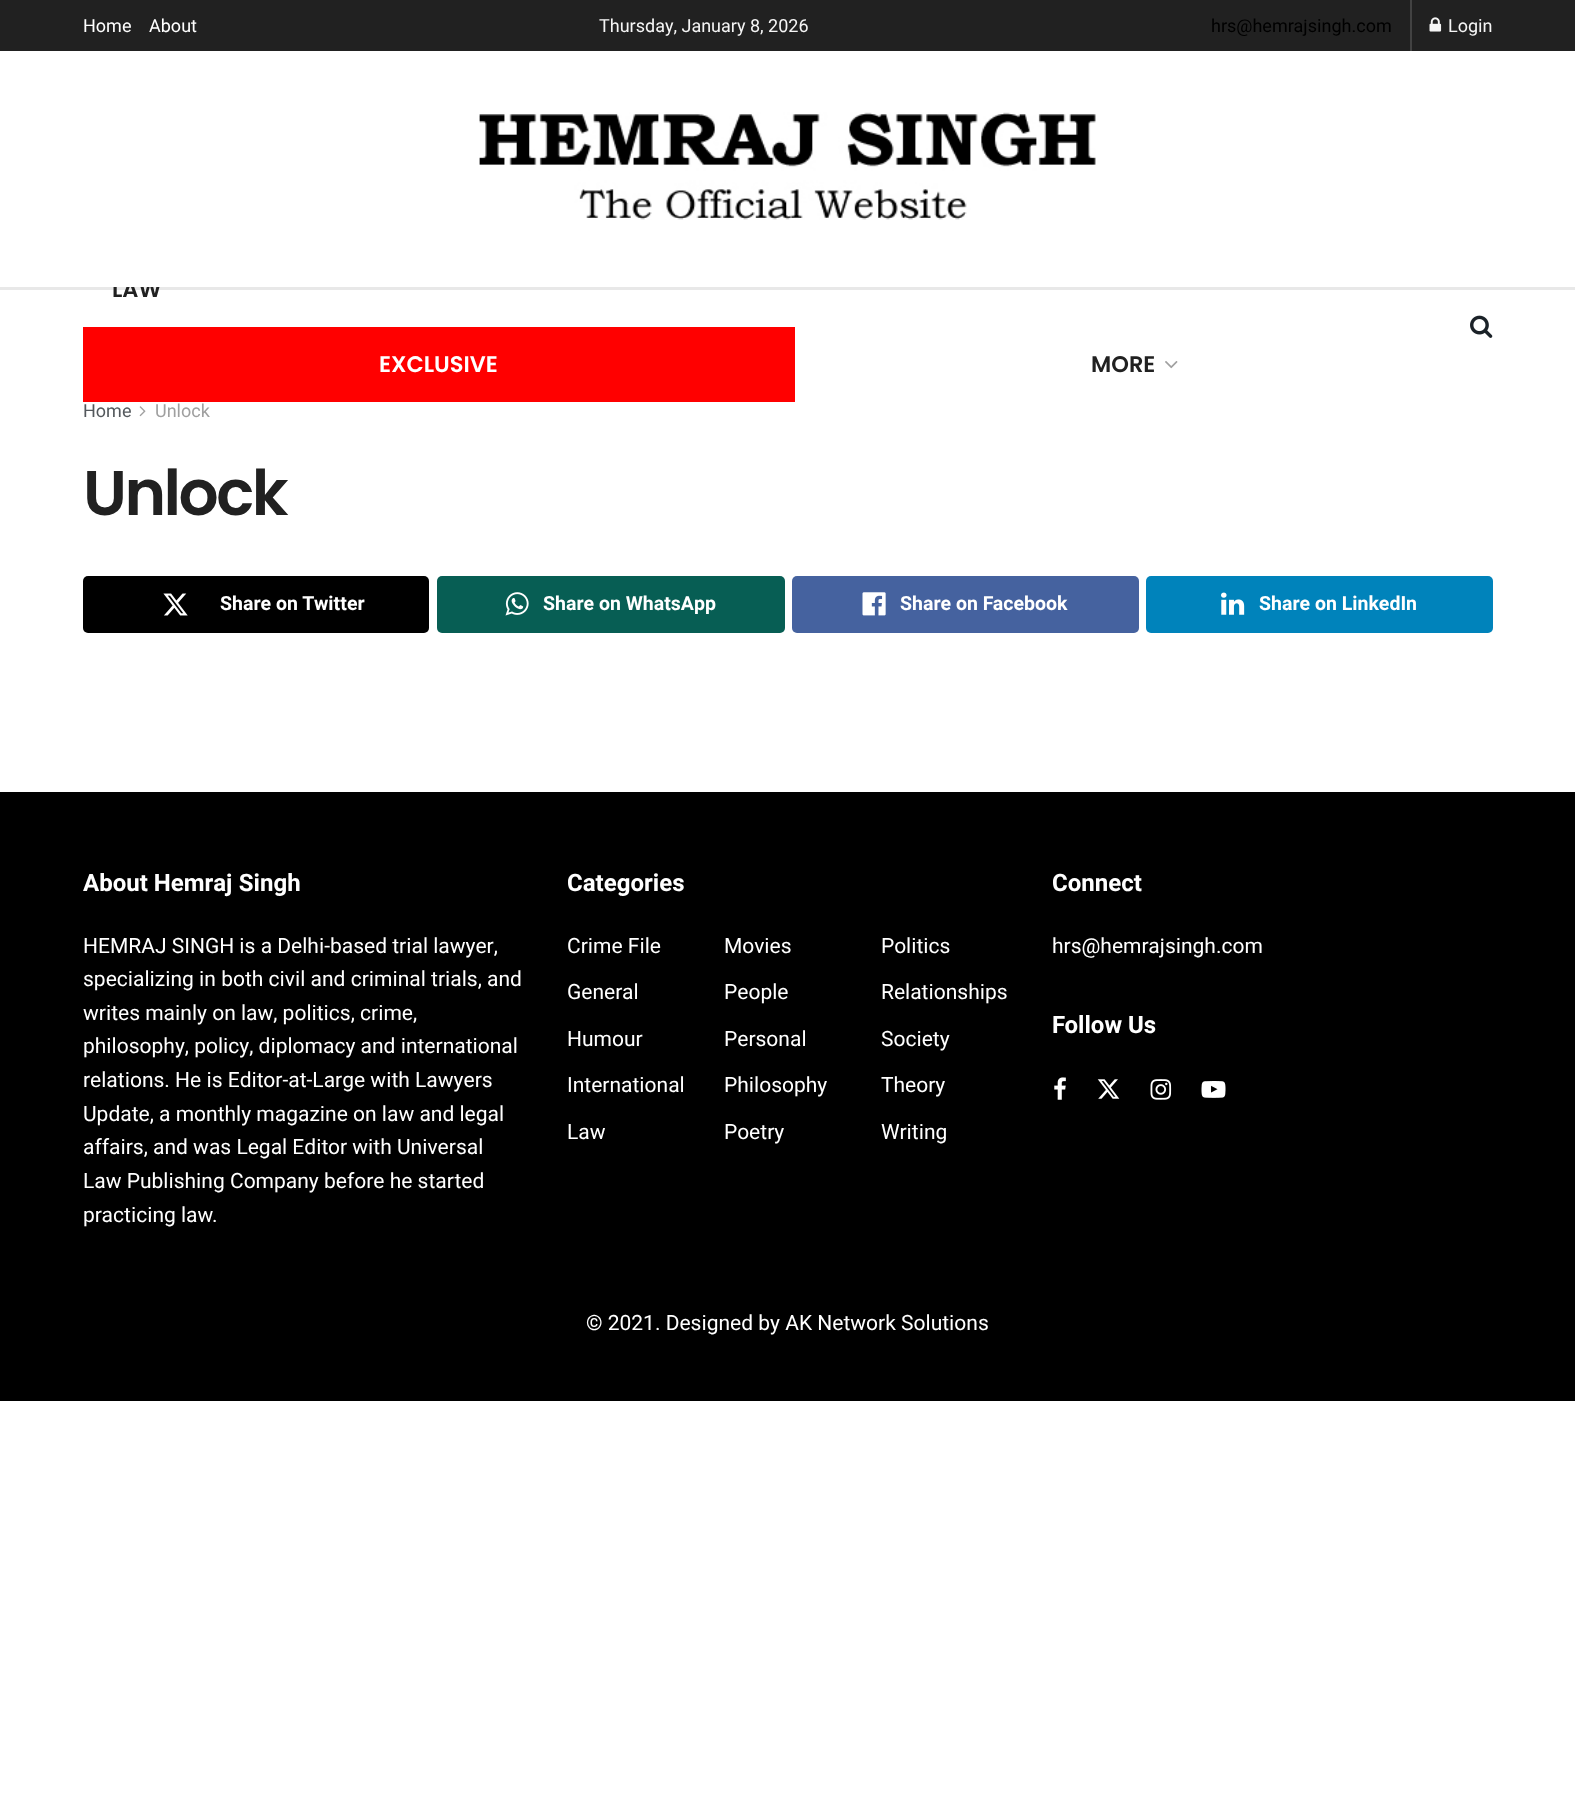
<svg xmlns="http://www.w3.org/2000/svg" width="1575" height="1807">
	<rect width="100%" height="100%" fill="#FFFFFF" />
	<rect x="0" y="0" width="1575" height="51" fill="#212121" />
	<g font-family="Heebo" font-size="18" fill="#FFFFFF">
		<text x="83" y="32">Home</text>
		<text x="149" y="32">About</text>
	</g>
	<text x="599" y="32" font-family="Heebo" font-size="18" fill="#F5F5F5">Thursday, January 8, 2026</text>
	<rect x="1410" y="0" width="2" height="51" fill="#424242" />
	<text x="1211" y="32" font-family="Heebo" font-size="18" fill="#000000">hrs@hemrajsingh.com</text>
	<image x="1429" y="17" width="13" height="15" href="assets/img1.png" />
	<text x="1448" y="32" font-family="Heebo" font-size="18" fill="#F5F5F5">Login</text>
	<rect x="0" y="287" width="1575" height="3" fill="#E8E8E8" />
	<text x="112" y="297" font-family="Poppins" font-size="22.5" font-weight="600" fill="#212121">LAW</text>
	<rect x="113" y="281" width="49" height="6" fill="#FFFFFF" />
	<image x="479" y="112" width="617" height="108" href="assets/img2.png" />
	<rect x="83" y="327" width="712" height="75" fill="#FF0000" />
	<text x="379" y="372" font-family="Poppins" font-size="22.5" font-weight="600" fill="#FFFFFF">EXCLUSIVE</text>
	<text x="1091" y="372" font-family="Poppins" font-size="22.5" font-weight="600" fill="#212121">MORE</text>
	<image x="1165" y="361" width="13" height="8" href="assets/img3.png" />
	<image x="1470" y="315" width="23" height="23" href="assets/img4.png" />
	<text x="83" y="417" font-family="Heebo" font-size="18" fill="#53585C">Home</text>
	<image x="139" y="406" width="7" height="11" href="assets/img5.png" />
	<text x="155" y="417" font-family="Heebo" font-size="18" fill="#A0A0A0">Unlock</text>
	<text x="83" y="515" font-family="Poppins" font-size="63" font-weight="600" letter-spacing="-2.5" fill="#212121">Unlock</text>
	<rect x="83" y="576" width="346" height="57" rx="5" fill="#000000" />
	<image x="163" y="593" width="25" height="23" href="assets/img6.png" />
	<text x="220" y="610" font-family="Heebo" font-size="19.5" font-weight="700" fill="#FFFFFF">Share on Twitter</text>
	<rect x="437" y="576" width="348" height="57" rx="5" fill="#075E54" />
	<image x="505" y="592" width="24" height="24" href="assets/img7.png" />
	<text x="543" y="610" font-family="Heebo" font-size="19.5" font-weight="700" fill="#FFFFFF">Share on WhatsApp</text>
	<rect x="792" y="576" width="347" height="57" rx="5" fill="#45629F" />
	<image x="862" y="592" width="24" height="24" href="assets/img8.png" />
	<text x="900" y="610" font-family="Heebo" font-size="19.5" font-weight="700" fill="#FFFFFF">Share on Facebook</text>
	<rect x="1146" y="576" width="347" height="57" rx="5" fill="#0083BB" />
	<image x="1221" y="592" width="24" height="23" href="assets/img9.png" />
	<text x="1259" y="610" font-family="Heebo" font-size="19.5" font-weight="700" fill="#FFFFFF">Share on LinkedIn</text>
	<rect x="0" y="792" width="1575" height="609" fill="#000000" />
	<text x="83" y="891" font-family="Heebo" font-size="24" font-weight="700" fill="#FFFFFF">About Hemraj Singh</text>
	<g font-family="Heebo" font-size="21" fill="#FFFFFF">
		<text x="83" y="953">HEMRAJ SINGH is a Delhi-based trial lawyer,</text>
		<text x="83" y="986">specializing in both civil and criminal trials, and</text>
		<text x="83" y="1020">writes mainly on law, politics, crime,</text>
		<text x="83" y="1053">philosophy, policy, diplomacy and international</text>
		<text x="83" y="1087">relations. He is Editor-at-Large with Lawyers</text>
		<text x="83" y="1121">Update, a monthly magazine on law and legal</text>
		<text x="83" y="1154">affairs, and was Legal Editor with Universal</text>
		<text x="83" y="1188">Law Publishing Company before he started</text>
		<text x="83" y="1222">practicing law.</text>
	</g>
	<text x="567" y="891" font-family="Heebo" font-size="24" font-weight="700" fill="#FFFFFF">Categories</text>
	<g font-family="Heebo" font-size="21" fill="#FFFFFF">
		<text x="567" y="953">Crime File</text>
		<text x="724" y="953">Movies</text>
		<text x="881" y="953">Politics</text>
		<text x="567" y="999">General</text>
		<text x="724" y="999">People</text>
		<text x="881" y="999">Relationships</text>
		<text x="567" y="1046">Humour</text>
		<text x="724" y="1046">Personal</text>
		<text x="881" y="1046">Society</text>
		<text x="567" y="1092">International</text>
		<text x="724" y="1092">Philosophy</text>
		<text x="881" y="1092">Theory</text>
		<text x="567" y="1139">Law</text>
		<text x="724" y="1139">Poetry</text>
		<text x="881" y="1139">Writing</text>
	</g>
	<text x="1052" y="891" font-family="Heebo" font-size="24" font-weight="700" fill="#FFFFFF">Connect</text>
	<text x="1052" y="953" font-family="Heebo" font-size="21" fill="#FFFFFF">hrs@hemrajsingh.com</text>
	<text x="1052" y="1033" font-family="Heebo" font-size="24" font-weight="700" fill="#FFFFFF">Follow Us</text>
	<image x="1054" y="1077" width="12" height="23" href="assets/img10.png" />
	<image x="1097" y="1079" width="23" height="20" href="assets/img11.png" />
	<image x="1150" y="1079" width="22" height="21" href="assets/img12.png" />
	<image x="1201" y="1081" width="25" height="17" href="assets/img13.png" />
	<text x="586" y="1330" font-family="Heebo" font-size="21" fill="#FFFFFF">© 2021. Designed by AK Network Solutions</text>
</svg>
